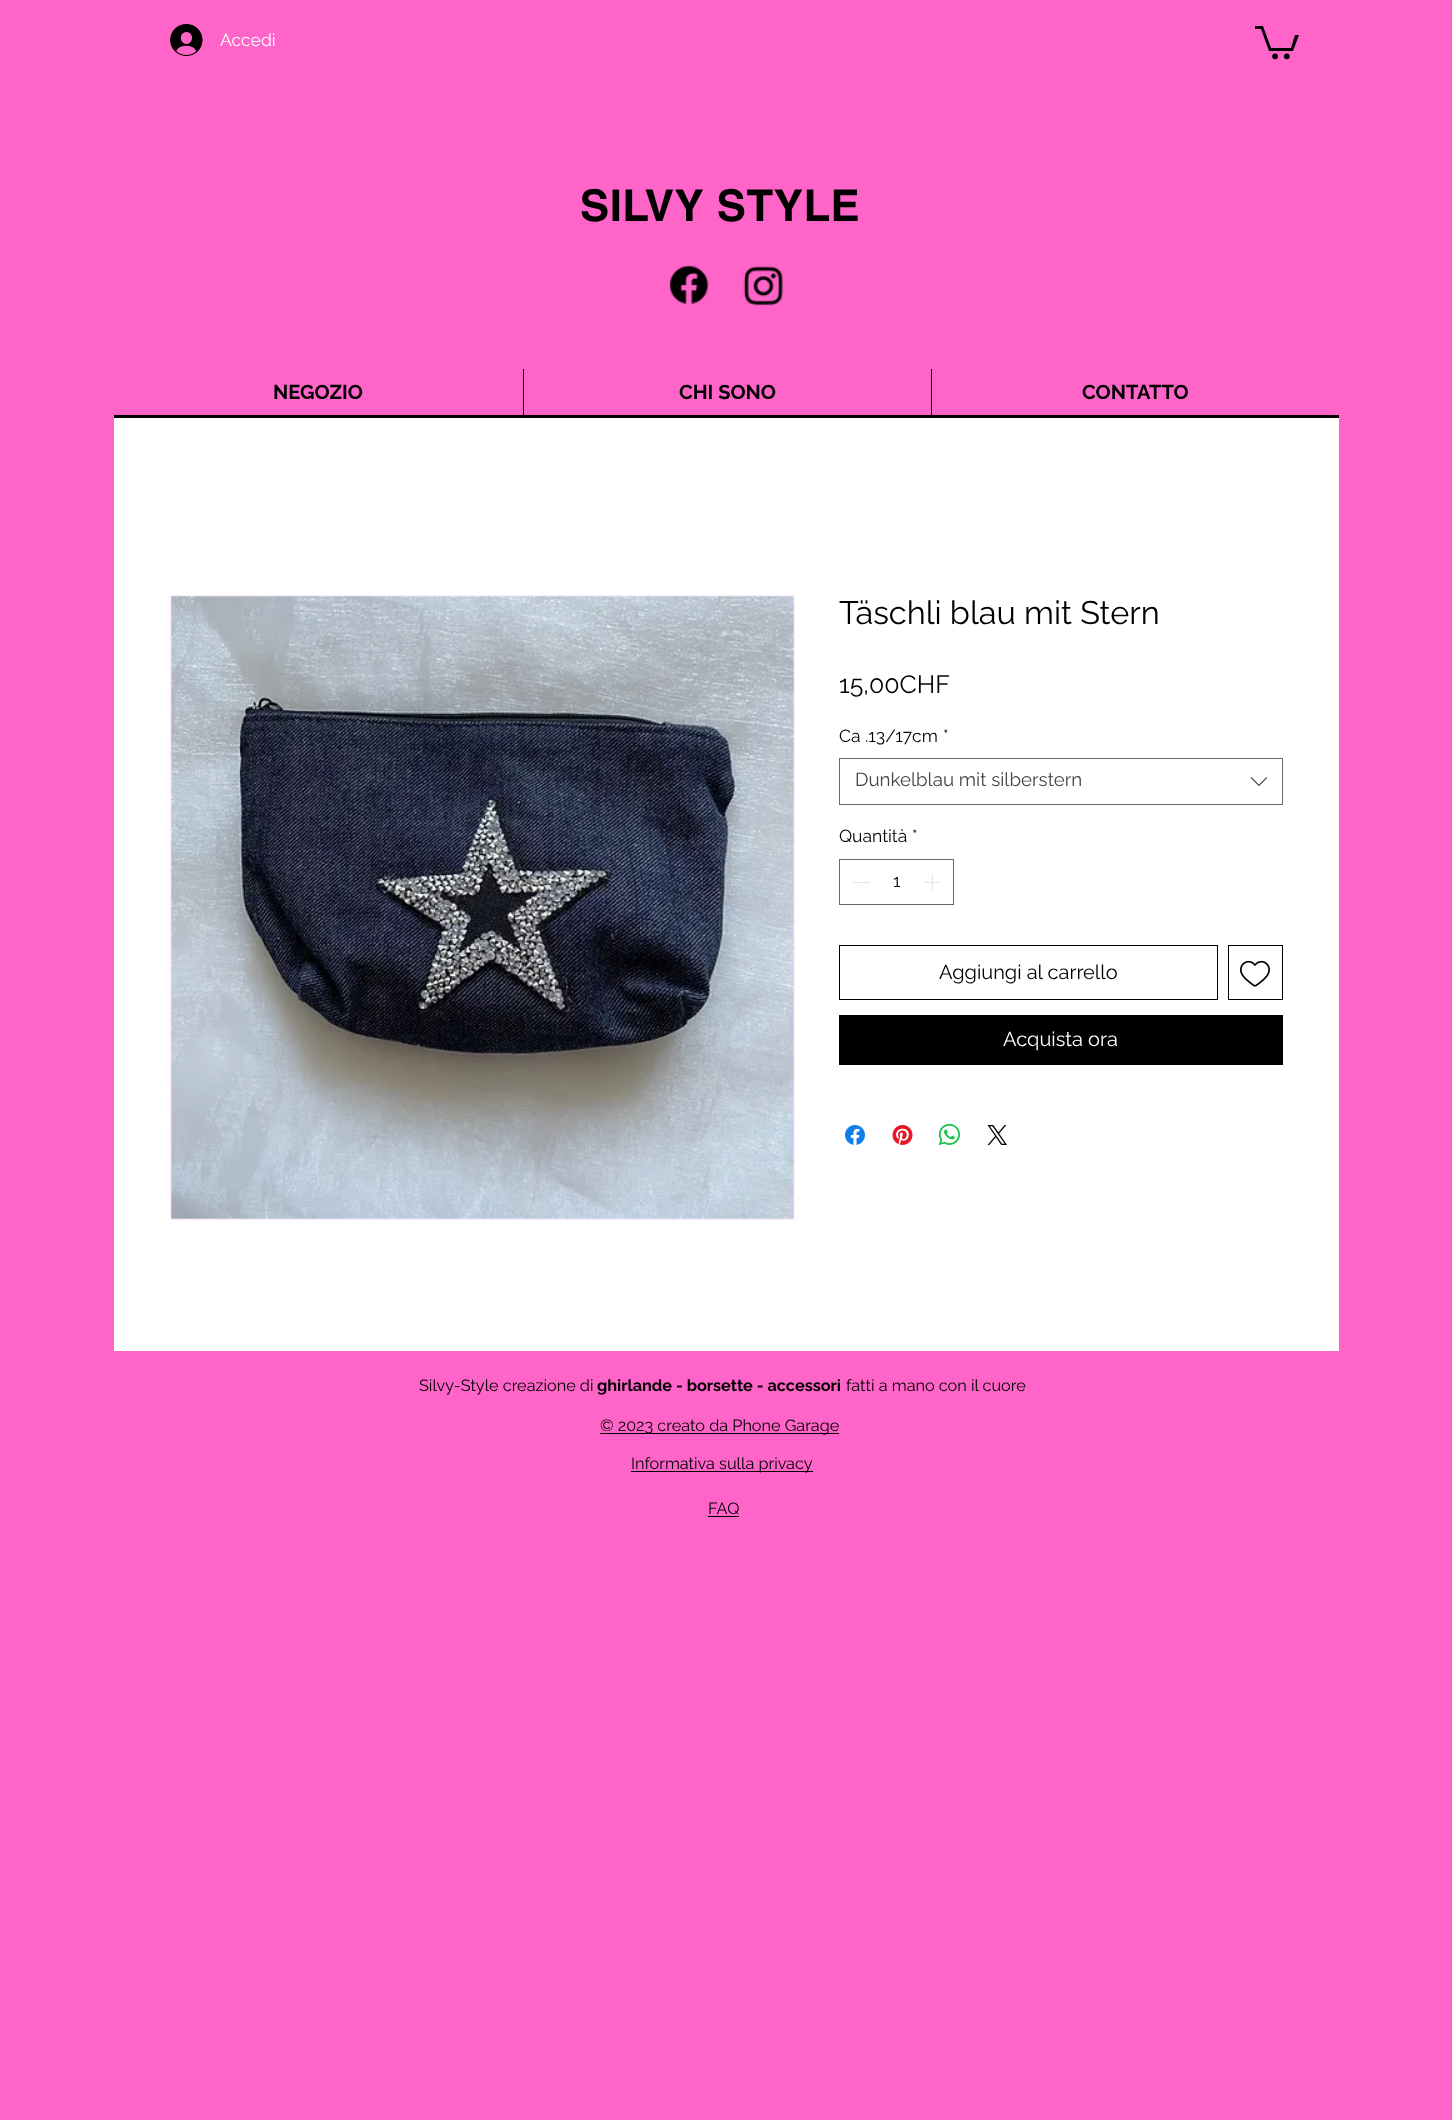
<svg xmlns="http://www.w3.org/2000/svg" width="1452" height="2120">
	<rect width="100%" height="100%" fill="#FF64C8" />
	<image x="170" y="24" width="33" height="32" href="assets/img1.png" />
	<text x="220" y="46" font-family="Raleway" font-size="17.5" fill="#FFFFFF">Accedi</text>
	<path d="M1299 35L1293 51H1269L1261 29H1255V26H1263L1271 48H1291L1295 35" fill="#000000" />
	<circle cx="1286.8" cy="56.3" r="2.9" fill="#000000" />
	<circle cx="1275.1" cy="56.3" r="2.9" fill="#000000" />
	<text x="580" y="221" font-family="helvetica" font-size="43.75" font-weight="700" letter-spacing="0.5" fill="#000000">SILVY STYLE</text>
	<image x="669" y="265" width="40" height="39" href="assets/img2.png" />
	<image x="743" y="266" width="40" height="40" href="assets/img3.png" />
	<path d="M114 415V420H1339V374V415Z" fill="#000000" />
	<text x="273" y="399" font-family="Raleway" font-size="20" font-weight="700" fill="#000000">NEGOZIO</text>
	<rect x="523" y="369" width="1" height="46" fill="#000000" />
	<text x="679" y="399" font-family="Raleway" font-size="20" font-weight="700" fill="#000000">CHI SONO</text>
	<rect x="931" y="369" width="1" height="46" fill="#000000" />
	<text x="1082" y="399" font-family="Raleway" font-size="20" font-weight="700" fill="#000000">CONTATTO</text>
	<rect x="114" y="418" width="1225" height="933" fill="#FFFFFF" />
	<rect x="170.5" y="595.5" width="624" height="624" fill="none" stroke="#FFEBFF" />
	<image x="171" y="596" width="623" height="623" href="assets/img4.png" />
	<text x="839" y="624" font-family="Raleway" font-size="32.5" fill="#000000">Täschli blau mit Stern</text>
	<text x="839" y="693" font-family="Raleway" font-size="25" fill="#000000">15,00CHF</text>
	<g font-family="Raleway" font-size="17.5" fill="#000000">
		<text x="839" y="742">Ca .13/17cm</text>
		<text x="943" y="742">*</text>
	</g>
	<rect x="839.5" y="758.5" width="443" height="46" fill="none" stroke="#666666" />
	<text x="855" y="786" font-family="Raleway" font-size="18.75" fill="#444444">Dunkelblau mit silberstern</text>
	<image x="1250" y="777" width="18" height="10" href="assets/img5.png" />
	<g font-family="Raleway" font-size="17.5" fill="#000000">
		<text x="839" y="842">Quantità</text>
		<text x="912" y="842">*</text>
	</g>
	<rect x="839.5" y="859.5" width="114" height="45" fill="none" stroke="#666666" />
	<rect x="853" y="882" width="17" height="1" fill="#E3E3E3" />
	<text x="893" y="887" font-family="Raleway" font-size="17.5" fill="#000000">1</text>
	<image x="924" y="874" width="17" height="17" href="assets/img6.png" />
	<rect x="839.5" y="945.5" width="378" height="54" fill="none" stroke="#000000" />
	<text x="939" y="979" font-family="Raleway" font-size="20" fill="#000000">Aggiungi al carrello</text>
	<rect x="1228.5" y="945.5" width="54" height="54" fill="none" stroke="#000000" />
	<image x="1240" y="960" width="30" height="27" href="assets/img7.png" />
	<rect x="839" y="1015" width="444" height="50" fill="#000000" />
	<text x="1003" y="1046" font-family="Raleway" font-size="20" fill="#FFFFFF">Acquista ora</text>
	<image x="845" y="1125" width="20" height="20" href="assets/img8.png" />
	<image x="892" y="1125" width="21" height="20" href="assets/img9.png" />
	<image x="938" y="1123" width="22" height="22" href="assets/img10.png" />
	<image x="987" y="1125" width="20" height="20" href="assets/img11.png" />
	<text x="419" y="1391" font-family="Raleway" font-size="16.25" fill="#000000">Silvy-Style creazione di</text>
	<text x="597" y="1391" font-family="Raleway" font-size="16.25" font-weight="700" fill="#000000">ghirlande - borsette - accessori</text>
	<text x="846" y="1391" font-family="Raleway" font-size="16.25" fill="#000000">fatti a mano con il cuore</text>
	<rect x="600" y="1433" width="239" height="1" fill="#000000" />
	<text x="600" y="1431" font-family="Raleway" font-size="16.25" fill="#000000">© 2023 creato da Phone Garage</text>
	<rect x="631" y="1471" width="182" height="1" fill="#000000" />
	<g font-family="Raleway" font-size="16.25" fill="#000000">
		<text x="631" y="1469">Informativa sulla privacy</text>
		<text x="708" y="1514">FAQ</text>
	</g>
	<rect x="708" y="1516" width="31" height="1" fill="#000000" />
</svg>
